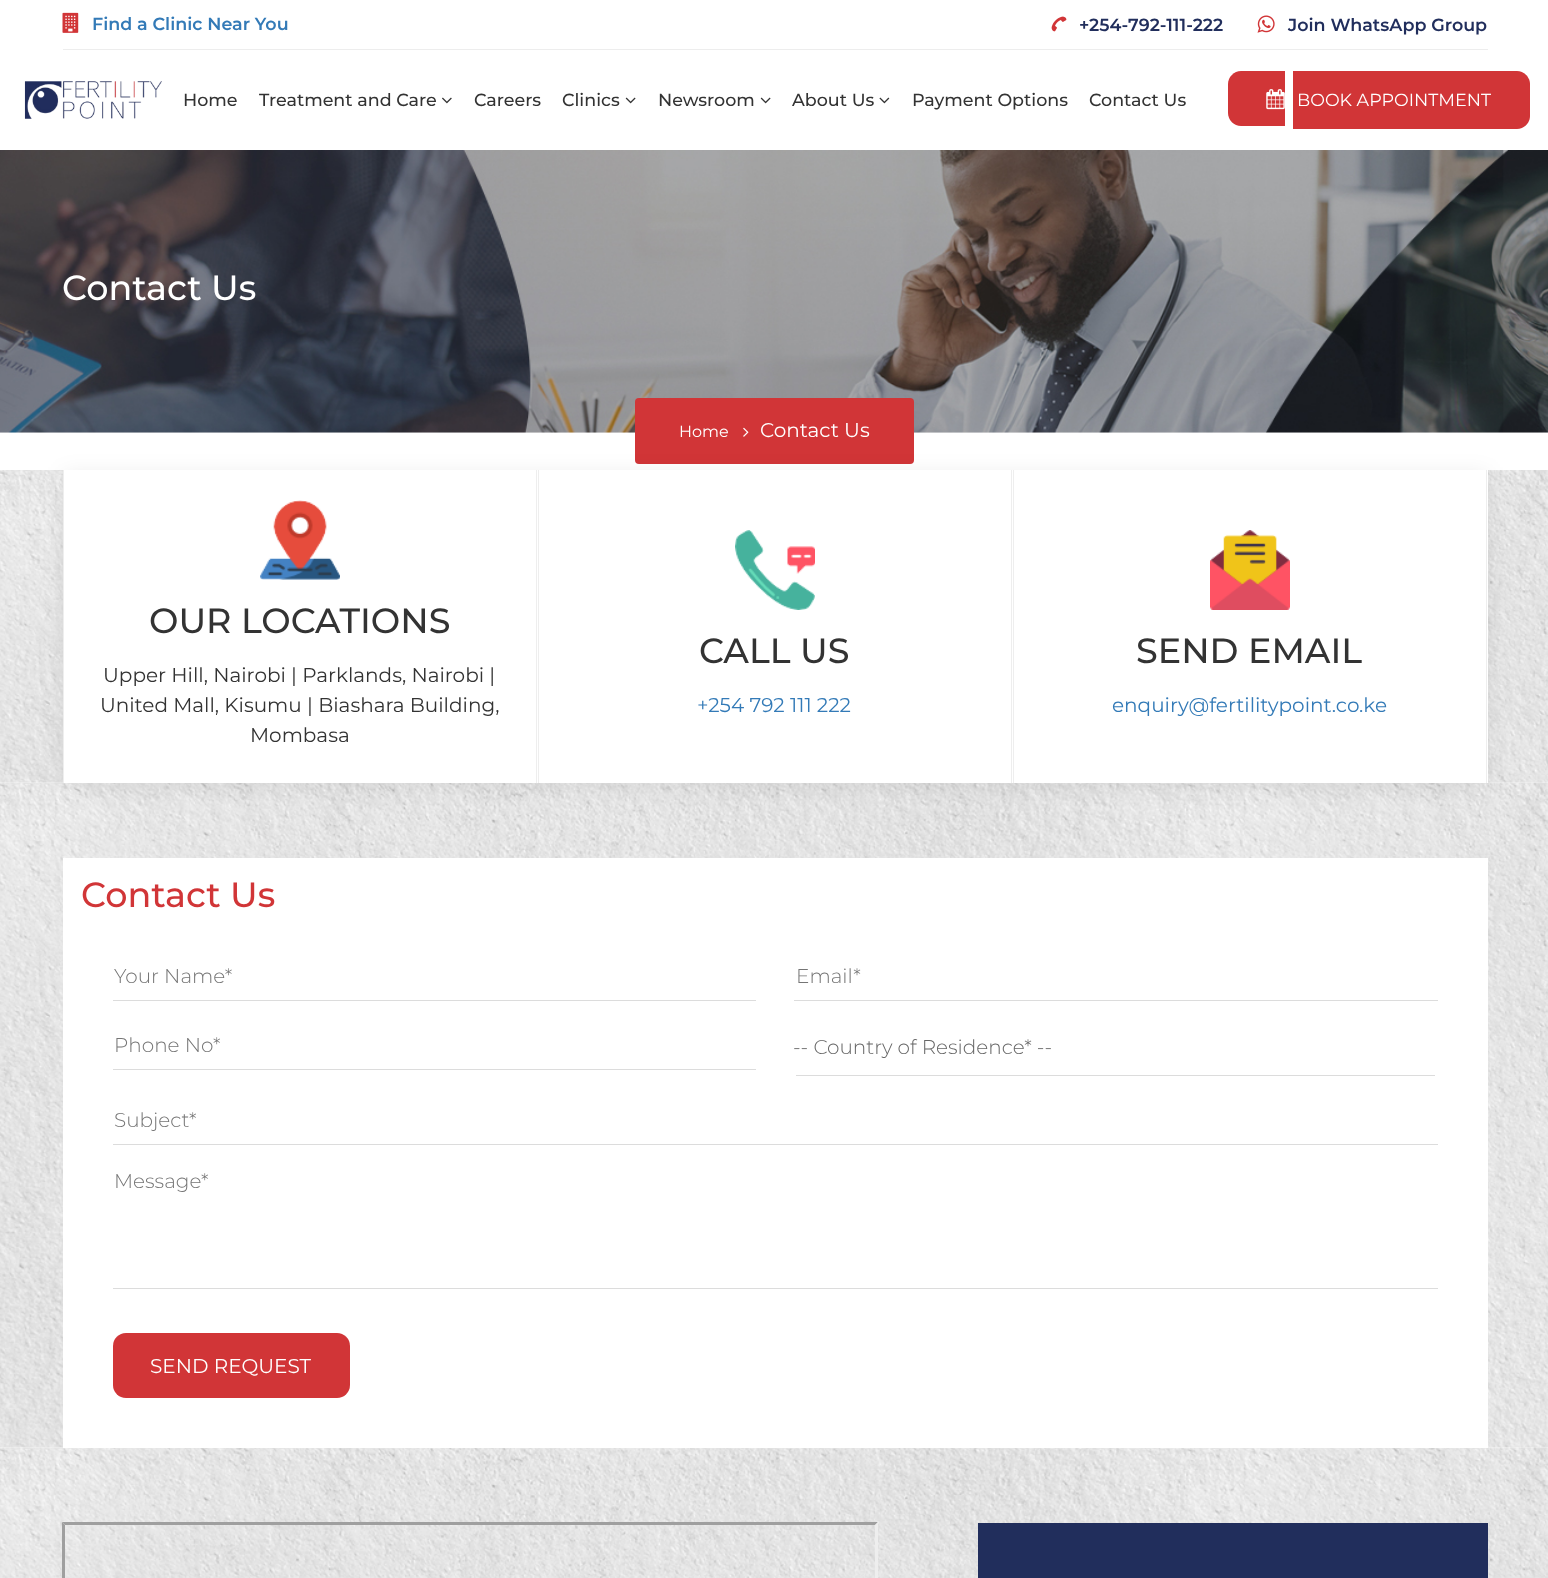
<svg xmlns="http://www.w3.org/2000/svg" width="1548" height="1578">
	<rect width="100%" height="100%" fill="#FFFFFF" />
	<rect x="63" y="49" width="1425" height="1" fill="#EDEDED" />
	<image x="62" y="12" width="17" height="21" href="assets/img1.png" />
	<text x="92" y="30" font-family="Montserrat" font-size="17.5" font-weight="600" fill="#337AB7">Find a Clinic Near You</text>
	<image x="1051" y="16" width="16" height="16" href="assets/img2.png" />
	<text x="1079" y="31" font-family="Montserrat" font-size="17.5" font-weight="600" fill="#212E5C">+254-792-111-222</text>
	<image x="1257" y="15" width="18" height="18" href="assets/img3.png" />
	<text x="1288" y="31" font-family="Montserrat" font-size="17.5" font-weight="600" fill="#212E5C">Join WhatsApp Group</text>
	<image x="24" y="81" width="138" height="38" href="assets/img4.png" />
	<g font-family="Montserrat" font-size="17.5" font-weight="500" fill="#333333">
		<text x="183" y="106">Home</text>
		<text x="259" y="106">Treatment and Care</text>
	</g>
	<image x="442" y="97" width="10" height="7" href="assets/img5.png" />
	<g font-family="Montserrat" font-size="17.5" font-weight="500" fill="#333333">
		<text x="474" y="106">Careers</text>
		<text x="562" y="106">Clinics</text>
	</g>
	<image x="625" y="97" width="11" height="7" href="assets/img6.png" />
	<text x="658" y="106" font-family="Montserrat" font-size="17.5" font-weight="500" fill="#333333">Newsroom</text>
	<image x="760" y="97" width="11" height="7" href="assets/img6.png" />
	<text x="792" y="106" font-family="Montserrat" font-size="17.5" font-weight="500" fill="#333333">About Us</text>
	<image x="879" y="97" width="11" height="7" href="assets/img7.png" />
	<g font-family="Montserrat" font-size="17.5" font-weight="500" fill="#333333">
		<text x="912" y="106">Payment Options</text>
		<text x="1089" y="106">Contact Us</text>
	</g>
	<path d="M1241 71H1285V126H1241C1234 126 1228 120 1228 113V84C1228 77 1234 71 1241 71Z" fill="#D13537" />
	<path d="M1293 71H1517C1524 71 1530 77 1530 84V116C1530 123 1524 129 1517 129H1293Z" fill="#D13537" />
	<image x="1266" y="89" width="19" height="21" href="assets/img8.png" />
	<text x="1297" y="106" font-family="Montserrat" font-size="17.5" fill="#FFFFFF">BOOK APPOINTMENT</text>
	<rect x="0" y="432" width="1548" height="1" fill="#EEEEEE" />
	<image x="0" y="150" width="1548" height="283" href="assets/img9.png" />
	<text x="62" y="300" font-family="Montserrat" font-size="35" font-weight="500" fill="#FFFFFF">Contact Us</text>
	<rect x="635" y="398" width="279" height="66" rx="4" fill="#D13537" />
	<text x="679" y="437" font-family="Montserrat" font-size="16" fill="#FFFFFF">Home</text>
	<image x="743" y="427" width="6" height="10" href="assets/img10.png" />
	<text x="760" y="437" font-family="Montserrat" font-size="20" fill="#FFFFFF">Contact Us</text>
	<image x="0" y="782" width="1548" height="666" href="assets/img15.png" />
	<image x="0" y="470" width="1548" height="313" href="assets/img11.png" />
	<rect x="63" y="474" width="1425" height="312" fill="#000000" fill-opacity="0.08" filter="blur(11px)" />
	<rect x="64" y="470" width="1424" height="313" fill="#FFFFFF" />
	<rect x="536" y="470" width="1" height="313" fill="#EEEEEE" />
	<rect x="63" y="470" width="1" height="313" fill="#EEEEEE" />
	<image x="260" y="500" width="80" height="80" href="assets/img12.png" />
	<text x="149" y="633" font-family="Montserrat" font-size="35" font-weight="500" fill="#333333">OUR LOCATIONS</text>
	<g font-family="Montserrat" font-size="20" fill="#333333">
		<text x="103" y="682">Upper Hill, Nairobi | Parklands, Nairobi |</text>
		<text x="100" y="712">United Mall, Kisumu | Biashara Building,</text>
		<text x="250" y="742">Mombasa</text>
	</g>
	<rect x="1011" y="470" width="1" height="313" fill="#EEEEEE" />
	<rect x="538" y="470" width="1" height="313" fill="#EEEEEE" />
	<image x="735" y="530" width="80" height="80" href="assets/img13.png" />
	<text x="699" y="663" font-family="Montserrat" font-size="35" font-weight="500" fill="#333333">CALL US</text>
	<text x="697" y="712" font-family="Montserrat" font-size="20" fill="#337AB7">+254 792 111 222</text>
	<rect x="1486" y="470" width="1" height="313" fill="#EEEEEE" />
	<rect x="1013" y="470" width="1" height="313" fill="#EEEEEE" />
	<image x="1210" y="530" width="80" height="80" href="assets/img14.png" />
	<text x="1136" y="663" font-family="Montserrat" font-size="35" font-weight="500" fill="#333333">SEND EMAIL</text>
	<text x="1112" y="712" font-family="Montserrat" font-size="20" fill="#337AB7">enquiry@fertilitypoint.co.ke</text>
	<image x="0" y="1447" width="1548" height="131" href="assets/img16.png" />
	<rect x="63" y="858" width="1425" height="590" fill="#FFFFFF" />
	<text x="81" y="907" font-family="Montserrat" font-size="35" font-weight="500" fill="#D13537">Contact Us</text>
	<rect x="113" y="1000" width="643" height="1" fill="#DCDCDC" />
	<text x="114" y="983" font-family="Montserrat" font-size="20" font-weight="300" fill="#757575">Your Name*</text>
	<rect x="794" y="1000" width="644" height="1" fill="#DCDCDC" />
	<text x="796" y="983" font-family="Montserrat" font-size="20" font-weight="300" fill="#757575">Email*</text>
	<rect x="113" y="1069" width="643" height="1" fill="#DCDCDC" />
	<text x="114" y="1052" font-family="Montserrat" font-size="20" font-weight="300" fill="#757575">Phone No*</text>
	<rect x="796" y="1075" width="639" height="1" fill="#DCDCDC" />
	<text x="793" y="1054" font-family="Montserrat" font-size="20" font-weight="300" fill="#666666">-- Country of Residence* --</text>
	<rect x="113" y="1144" width="1325" height="1" fill="#DCDCDC" />
	<text x="114" y="1127" font-family="Montserrat" font-size="20" font-weight="300" fill="#757575">Subject*</text>
	<rect x="113" y="1288" width="1325" height="1" fill="#DCDCDC" />
	<text x="114" y="1188" font-family="Montserrat" font-size="20" font-weight="300" fill="#757575">Message*</text>
	<rect x="113" y="1333" width="237" height="65" rx="13" fill="#D13537" />
	<text x="150" y="1373" font-family="Montserrat" font-size="20" fill="#FFFFFF">SEND REQUEST</text>
	<path d="M62 1522H878L875 1525H65Z" fill="#9F9F9F" />
	<path d="M62 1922V1522L65 1525V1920Z" fill="#9F9F9F" />
	<path d="M878 1522V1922L875 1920V1525Z" fill="#EEEEEE" />
	<rect x="978" y="1523" width="510" height="55" fill="#212E5C" />
</svg>
